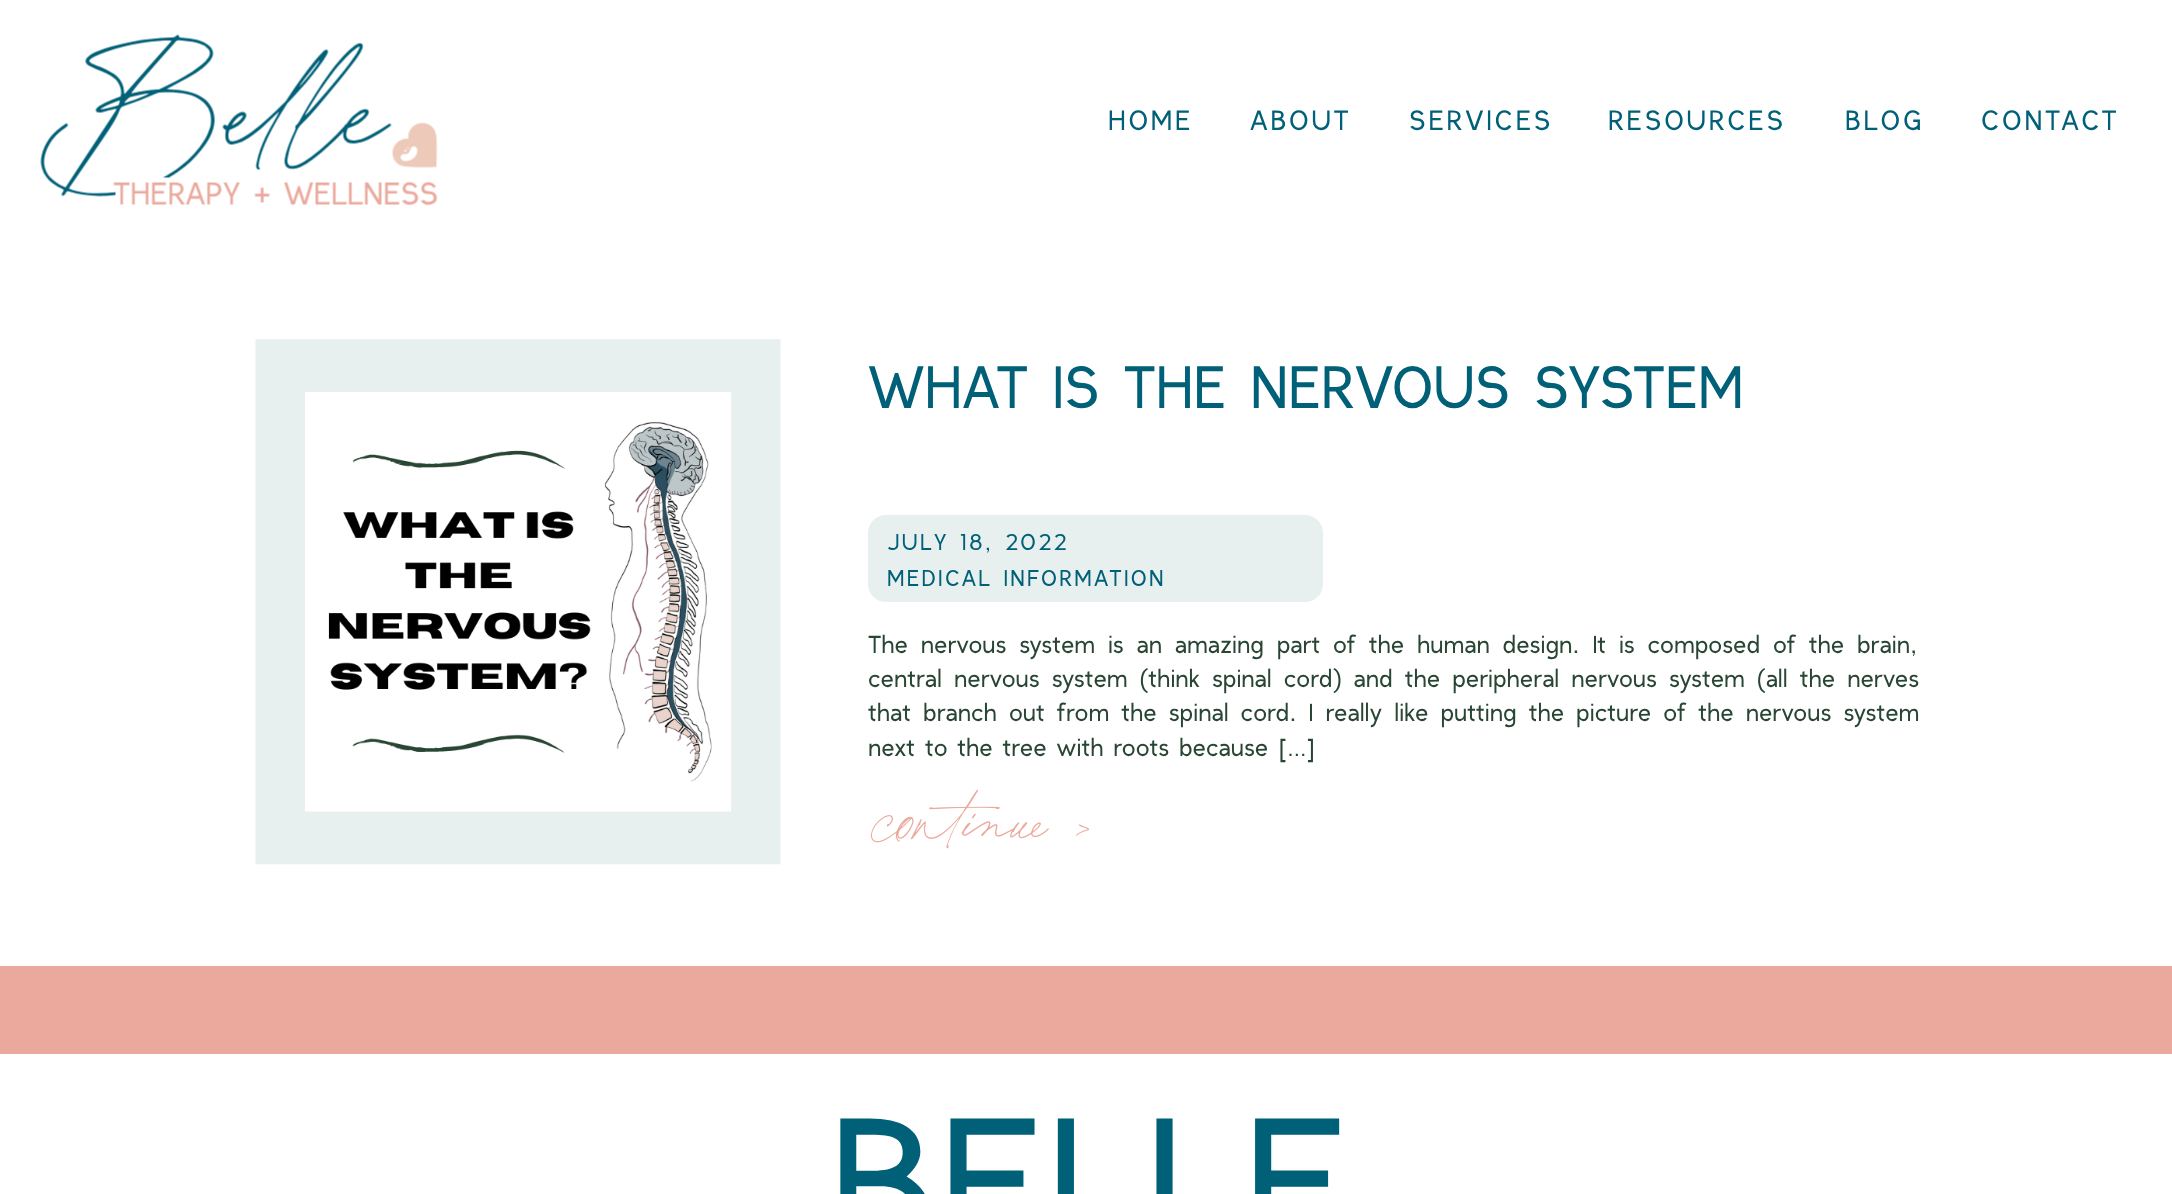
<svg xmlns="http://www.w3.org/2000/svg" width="2172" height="1194">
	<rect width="100%" height="100%" fill="#FFFFFF" />
	<image x="40" y="34" width="398" height="172" href="assets/img1.png" />
	<g font-family="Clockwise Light" font-size="28" font-weight="300" letter-spacing="2.75" fill="#006077">
		<text x="1108" y="130">HOME</text>
		<text x="1250" y="130">ABOUT</text>
		<text x="1409" y="130">SERVICES</text>
		<text x="1608" y="130">RESOURCES</text>
		<text x="1845" y="130">BLOG</text>
		<text x="1981" y="130">CONTACT</text>
	</g>
	<image x="255" y="339" width="526" height="526" href="assets/img2.png" />
	<text x="868" y="408" font-family="Clockwise Light" font-size="59.5" font-weight="300" fill="#006077">WHAT IS THE NERVOUS SYSTEM</text>
	<rect x="868" y="515" width="455" height="87" rx="18" fill="#E8F0EF" />
	<g font-family="Clockwise Light" font-size="22.75" font-weight="300" letter-spacing="2.25" fill="#006077">
		<text x="887" y="550">JULY 18, 2022</text>
		<text x="887" y="586">MEDICAL INFORMATION</text>
	</g>
	<g font-family="Clockwise Light" font-size="24.5" font-weight="300" fill="#294634">
		<text x="868" y="653" word-spacing="3">The nervous system is an amazing part of the human design. It is composed of the brain,</text>
		<text x="868" y="687" word-spacing="2.25">central nervous system (think spinal cord) and the peripheral nervous system (all the nerves</text>
		<text x="868" y="721" word-spacing="2.25">that branch out from the spinal cord. I really like putting the picture of the nervous system</text>
		<text x="868" y="756">next to the tree with roots because […]</text>
	</g>
	<image x="870" y="789" width="220" height="60" href="assets/img3.png" />
	<rect x="0" y="966" width="2172" height="88" fill="#EAA99C" />
	<image x="840" y="1118" width="500" height="76" href="assets/img4.png" />
</svg>
